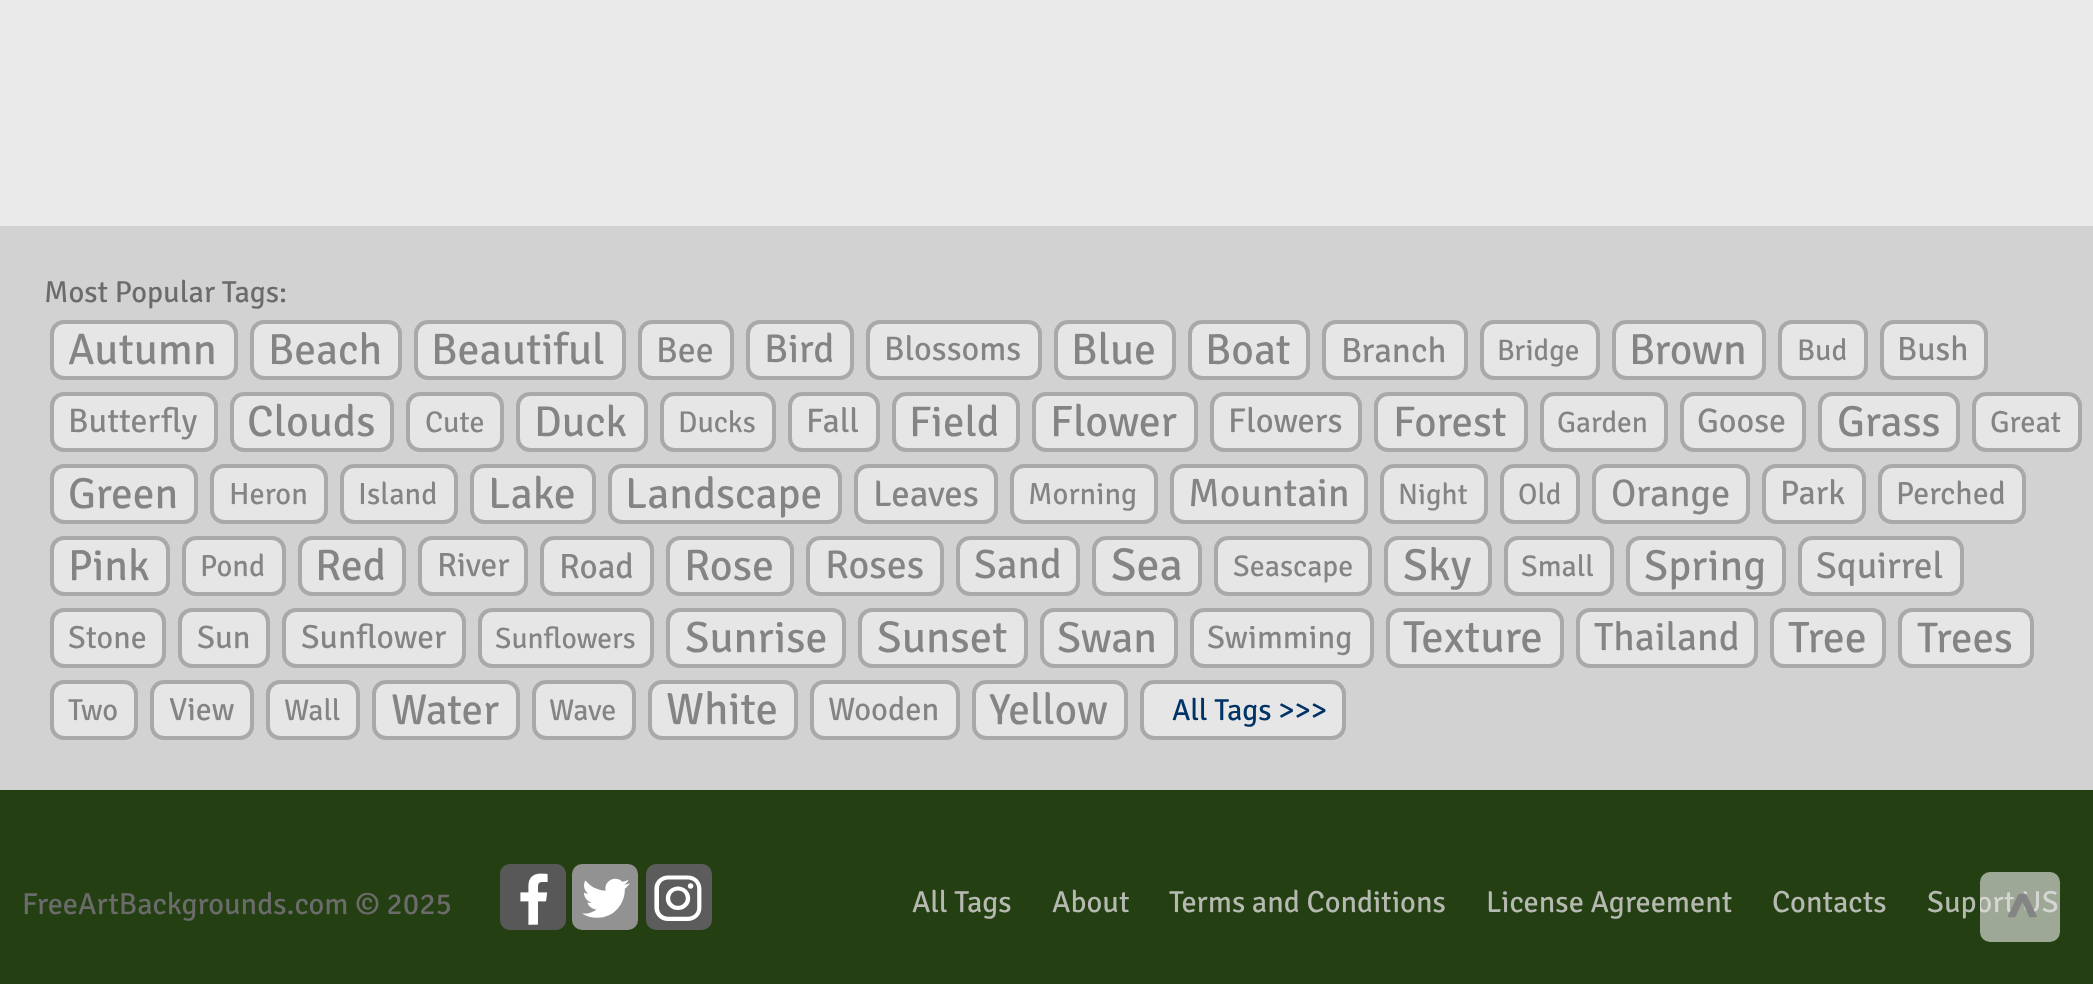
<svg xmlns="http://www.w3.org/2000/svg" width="2093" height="996">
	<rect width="100%" height="100%" fill="#FFFFFF" />
	<rect x="0" y="790" width="2093" height="194" fill="#244012" />
	<rect x="0" y="0" width="2093" height="226" fill="#EAEAEA" />
	<rect x="0" y="226" width="2093" height="564" fill="#D2D2D2" />
	<text x="44" y="302" font-family="Signika Negative" font-size="30.4" font-weight="300" fill="#6B6B6B">Most Popular Tags:</text>
	<rect x="52" y="322" width="184" height="56" rx="12" fill="#E6E6E6" stroke="#A9A9A9" stroke-width="4" />
	<text x="68" y="364" font-family="Signika Negative" font-size="44" font-weight="300" fill="#848484">Autumn</text>
	<rect x="252" y="322" width="148" height="56" rx="12" fill="#E6E6E6" stroke="#A9A9A9" stroke-width="4" />
	<text x="268" y="364" font-family="Signika Negative" font-size="43.5" font-weight="300" fill="#848484">Beach</text>
	<rect x="416" y="322" width="208" height="56" rx="12" fill="#E6E6E6" stroke="#A9A9A9" stroke-width="4" />
	<text x="431" y="364" font-family="Signika Negative" font-size="44" font-weight="300" fill="#848484">Beautiful</text>
	<rect x="640" y="322" width="92" height="56" rx="12" fill="#E6E6E6" stroke="#A9A9A9" stroke-width="4" />
	<text x="656" y="362" font-family="Signika Negative" font-size="36" font-weight="300" fill="#848484">Bee</text>
	<rect x="748" y="322" width="104" height="56" rx="12" fill="#E6E6E6" stroke="#A9A9A9" stroke-width="4" />
	<text x="764" y="362" font-family="Signika Negative" font-size="40" font-weight="300" fill="#848484">Bird</text>
	<rect x="868" y="322" width="172" height="56" rx="12" fill="#E6E6E6" stroke="#A9A9A9" stroke-width="4" />
	<text x="884" y="360" font-family="Signika Negative" font-size="34" font-weight="300" fill="#848484">Blossoms</text>
	<rect x="1056" y="322" width="118" height="56" rx="12" fill="#E6E6E6" stroke="#A9A9A9" stroke-width="4" />
	<text x="1071" y="364" font-family="Signika Negative" font-size="44" font-weight="300" fill="#848484">Blue</text>
	<rect x="1190" y="322" width="118" height="56" rx="12" fill="#E6E6E6" stroke="#A9A9A9" stroke-width="4" />
	<text x="1205" y="364" font-family="Signika Negative" font-size="43.5" font-weight="300" fill="#848484">Boat</text>
	<rect x="1324" y="322" width="142" height="56" rx="12" fill="#E6E6E6" stroke="#A9A9A9" stroke-width="4" />
	<text x="1341" y="362" font-family="Signika Negative" font-size="35" font-weight="300" fill="#848484">Branch</text>
	<rect x="1482" y="322" width="116" height="56" rx="12" fill="#E6E6E6" stroke="#A9A9A9" stroke-width="4" />
	<text x="1497" y="360" font-family="Signika Negative" font-size="29.5" font-weight="300" fill="#848484">Bridge</text>
	<rect x="1614" y="322" width="150" height="56" rx="12" fill="#E6E6E6" stroke="#A9A9A9" stroke-width="4" />
	<text x="1629" y="364" font-family="Signika Negative" font-size="43.5" font-weight="300" fill="#848484">Brown</text>
	<rect x="1780" y="322" width="86" height="56" rx="12" fill="#E6E6E6" stroke="#A9A9A9" stroke-width="4" />
	<text x="1797" y="360" font-family="Signika Negative" font-size="30" font-weight="300" fill="#848484">Bud</text>
	<rect x="1882" y="322" width="104" height="56" rx="12" fill="#E6E6E6" stroke="#A9A9A9" stroke-width="4" />
	<text x="1897" y="360" font-family="Signika Negative" font-size="33.5" font-weight="300" fill="#848484">Bush</text>
	<rect x="52" y="394" width="164" height="56" rx="12" fill="#E6E6E6" stroke="#A9A9A9" stroke-width="4" />
	<text x="68" y="432" font-family="Signika Negative" font-size="34" font-weight="300" fill="#848484">Butterfly</text>
	<rect x="232" y="394" width="160" height="56" rx="12" fill="#E6E6E6" stroke="#A9A9A9" stroke-width="4" />
	<text x="247" y="436" font-family="Signika Negative" font-size="44" font-weight="300" fill="#848484">Clouds</text>
	<rect x="408" y="394" width="94" height="56" rx="12" fill="#E6E6E6" stroke="#A9A9A9" stroke-width="4" />
	<text x="425" y="432" font-family="Signika Negative" font-size="30" font-weight="300" fill="#848484">Cute</text>
	<rect x="518" y="394" width="128" height="56" rx="12" fill="#E6E6E6" stroke="#A9A9A9" stroke-width="4" />
	<text x="534" y="436" font-family="Signika Negative" font-size="43" font-weight="300" fill="#848484">Duck</text>
	<rect x="662" y="394" width="112" height="56" rx="12" fill="#E6E6E6" stroke="#A9A9A9" stroke-width="4" />
	<text x="678" y="432" font-family="Signika Negative" font-size="30" font-weight="300" fill="#848484">Ducks</text>
	<rect x="790" y="394" width="88" height="56" rx="12" fill="#E6E6E6" stroke="#A9A9A9" stroke-width="4" />
	<text x="806" y="432" font-family="Signika Negative" font-size="34" font-weight="300" fill="#848484">Fall</text>
	<rect x="894" y="394" width="124" height="56" rx="12" fill="#E6E6E6" stroke="#A9A9A9" stroke-width="4" />
	<text x="909" y="436" font-family="Signika Negative" font-size="43" font-weight="300" fill="#848484">Field</text>
	<rect x="1034" y="394" width="162" height="56" rx="12" fill="#E6E6E6" stroke="#A9A9A9" stroke-width="4" />
	<text x="1050" y="436" font-family="Signika Negative" font-size="44" font-weight="300" fill="#848484">Flower</text>
	<rect x="1212" y="394" width="148" height="56" rx="12" fill="#E6E6E6" stroke="#A9A9A9" stroke-width="4" />
	<text x="1228" y="432" font-family="Signika Negative" font-size="34.5" font-weight="300" fill="#848484">Flowers</text>
	<rect x="1376" y="394" width="150" height="56" rx="12" fill="#E6E6E6" stroke="#A9A9A9" stroke-width="4" />
	<text x="1393" y="436" font-family="Signika Negative" font-size="43" font-weight="300" fill="#848484">Forest</text>
	<rect x="1542" y="394" width="124" height="56" rx="12" fill="#E6E6E6" stroke="#A9A9A9" stroke-width="4" />
	<text x="1557" y="432" font-family="Signika Negative" font-size="29.5" font-weight="300" fill="#848484">Garden</text>
	<rect x="1682" y="394" width="122" height="56" rx="12" fill="#E6E6E6" stroke="#A9A9A9" stroke-width="4" />
	<text x="1697" y="432" font-family="Signika Negative" font-size="34" font-weight="300" fill="#848484">Goose</text>
	<rect x="1820" y="394" width="138" height="56" rx="12" fill="#E6E6E6" stroke="#A9A9A9" stroke-width="4" />
	<text x="1837" y="436" font-family="Signika Negative" font-size="43.5" font-weight="300" fill="#848484">Grass</text>
	<rect x="1974" y="394" width="106" height="56" rx="12" fill="#E6E6E6" stroke="#A9A9A9" stroke-width="4" />
	<text x="1990" y="432" font-family="Signika Negative" font-size="30.5" font-weight="300" fill="#848484">Great</text>
	<rect x="52" y="466" width="144" height="56" rx="12" fill="#E6E6E6" stroke="#A9A9A9" stroke-width="4" />
	<text x="68" y="508" font-family="Signika Negative" font-size="43.5" font-weight="300" fill="#848484">Green</text>
	<rect x="212" y="466" width="114" height="56" rx="12" fill="#E6E6E6" stroke="#A9A9A9" stroke-width="4" />
	<text x="229" y="504" font-family="Signika Negative" font-size="30.5" font-weight="300" fill="#848484">Heron</text>
	<rect x="342" y="466" width="114" height="56" rx="12" fill="#E6E6E6" stroke="#A9A9A9" stroke-width="4" />
	<text x="358" y="504" font-family="Signika Negative" font-size="30.5" font-weight="300" fill="#848484">Island</text>
	<rect x="472" y="466" width="122" height="56" rx="12" fill="#E6E6E6" stroke="#A9A9A9" stroke-width="4" />
	<text x="488" y="508" font-family="Signika Negative" font-size="44" font-weight="300" fill="#848484">Lake</text>
	<rect x="610" y="466" width="230" height="56" rx="12" fill="#E6E6E6" stroke="#A9A9A9" stroke-width="4" />
	<text x="625" y="508" font-family="Signika Negative" font-size="43.5" font-weight="300" fill="#848484">Landscape</text>
	<rect x="856" y="466" width="140" height="56" rx="12" fill="#E6E6E6" stroke="#A9A9A9" stroke-width="4" />
	<text x="873" y="506" font-family="Signika Negative" font-size="37" font-weight="300" fill="#848484">Leaves</text>
	<rect x="1012" y="466" width="144" height="56" rx="12" fill="#E6E6E6" stroke="#A9A9A9" stroke-width="4" />
	<text x="1028" y="504" font-family="Signika Negative" font-size="30.5" font-weight="300" fill="#848484">Morning</text>
	<rect x="1172" y="466" width="194" height="56" rx="12" fill="#E6E6E6" stroke="#A9A9A9" stroke-width="4" />
	<text x="1188" y="506" font-family="Signika Negative" font-size="39.5" font-weight="300" fill="#848484">Mountain</text>
	<rect x="1382" y="466" width="104" height="56" rx="12" fill="#E6E6E6" stroke="#A9A9A9" stroke-width="4" />
	<text x="1398" y="504" font-family="Signika Negative" font-size="29.5" font-weight="300" fill="#848484">Night</text>
	<rect x="1502" y="466" width="76" height="56" rx="12" fill="#E6E6E6" stroke="#A9A9A9" stroke-width="4" />
	<text x="1518" y="504" font-family="Signika Negative" font-size="29.5" font-weight="300" fill="#848484">Old</text>
	<rect x="1594" y="466" width="154" height="56" rx="12" fill="#E6E6E6" stroke="#A9A9A9" stroke-width="4" />
	<text x="1611" y="506" font-family="Signika Negative" font-size="38.5" font-weight="300" fill="#848484">Orange</text>
	<rect x="1764" y="466" width="100" height="56" rx="12" fill="#E6E6E6" stroke="#A9A9A9" stroke-width="4" />
	<text x="1780" y="504" font-family="Signika Negative" font-size="34" font-weight="300" fill="#848484">Park</text>
	<rect x="1880" y="466" width="144" height="56" rx="12" fill="#E6E6E6" stroke="#A9A9A9" stroke-width="4" />
	<text x="1896" y="504" font-family="Signika Negative" font-size="32" font-weight="300" fill="#848484">Perched</text>
	<rect x="52" y="538" width="116" height="56" rx="12" fill="#E6E6E6" stroke="#A9A9A9" stroke-width="4" />
	<text x="68" y="580" font-family="Signika Negative" font-size="43.5" font-weight="300" fill="#848484">Pink</text>
	<rect x="184" y="538" width="100" height="56" rx="12" fill="#E6E6E6" stroke="#A9A9A9" stroke-width="4" />
	<text x="200" y="576" font-family="Signika Negative" font-size="30.5" font-weight="300" fill="#848484">Pond</text>
	<rect x="300" y="538" width="104" height="56" rx="12" fill="#E6E6E6" stroke="#A9A9A9" stroke-width="4" />
	<text x="315" y="580" font-family="Signika Negative" font-size="44" font-weight="300" fill="#848484">Red</text>
	<rect x="420" y="538" width="106" height="56" rx="12" fill="#E6E6E6" stroke="#A9A9A9" stroke-width="4" />
	<text x="437" y="576" font-family="Signika Negative" font-size="33.5" font-weight="300" fill="#848484">River</text>
	<rect x="542" y="538" width="110" height="56" rx="12" fill="#E6E6E6" stroke="#A9A9A9" stroke-width="4" />
	<text x="559" y="578" font-family="Signika Negative" font-size="35" font-weight="300" fill="#848484">Road</text>
	<rect x="668" y="538" width="124" height="56" rx="12" fill="#E6E6E6" stroke="#A9A9A9" stroke-width="4" />
	<text x="684" y="580" font-family="Signika Negative" font-size="44" font-weight="300" fill="#848484">Rose</text>
	<rect x="808" y="538" width="134" height="56" rx="12" fill="#E6E6E6" stroke="#A9A9A9" stroke-width="4" />
	<text x="825" y="578" font-family="Signika Negative" font-size="40" font-weight="300" fill="#848484">Roses</text>
	<rect x="958" y="538" width="120" height="56" rx="12" fill="#E6E6E6" stroke="#A9A9A9" stroke-width="4" />
	<text x="974" y="578" font-family="Signika Negative" font-size="41" font-weight="300" fill="#848484">Sand</text>
	<rect x="1094" y="538" width="106" height="56" rx="12" fill="#E6E6E6" stroke="#A9A9A9" stroke-width="4" />
	<text x="1111" y="580" font-family="Signika Negative" font-size="46" font-weight="300" fill="#848484">Sea</text>
	<rect x="1216" y="538" width="154" height="56" rx="12" fill="#E6E6E6" stroke="#A9A9A9" stroke-width="4" />
	<text x="1233" y="576" font-family="Signika Negative" font-size="30" font-weight="300" fill="#848484">Seascape</text>
	<rect x="1386" y="538" width="104" height="56" rx="12" fill="#E6E6E6" stroke="#A9A9A9" stroke-width="4" />
	<text x="1403" y="580" font-family="Signika Negative" font-size="45" font-weight="300" fill="#848484">Sky</text>
	<rect x="1506" y="538" width="106" height="56" rx="12" fill="#E6E6E6" stroke="#A9A9A9" stroke-width="4" />
	<text x="1521" y="576" font-family="Signika Negative" font-size="30" font-weight="300" fill="#848484">Small</text>
	<rect x="1628" y="538" width="156" height="56" rx="12" fill="#E6E6E6" stroke="#A9A9A9" stroke-width="4" />
	<text x="1644" y="580" font-family="Signika Negative" font-size="43.5" font-weight="300" fill="#848484">Spring</text>
	<rect x="1800" y="538" width="162" height="56" rx="12" fill="#E6E6E6" stroke="#A9A9A9" stroke-width="4" />
	<text x="1816" y="578" font-family="Signika Negative" font-size="37.5" font-weight="300" fill="#848484">Squirrel</text>
	<rect x="52" y="610" width="112" height="56" rx="12" fill="#E6E6E6" stroke="#A9A9A9" stroke-width="4" />
	<text x="68" y="648" font-family="Signika Negative" font-size="32" font-weight="300" fill="#848484">Stone</text>
	<rect x="180" y="610" width="88" height="56" rx="12" fill="#E6E6E6" stroke="#A9A9A9" stroke-width="4" />
	<text x="197" y="648" font-family="Signika Negative" font-size="32.5" font-weight="300" fill="#848484">Sun</text>
	<rect x="284" y="610" width="180" height="56" rx="12" fill="#E6E6E6" stroke="#A9A9A9" stroke-width="4" />
	<text x="301" y="648" font-family="Signika Negative" font-size="33.5" font-weight="300" fill="#848484">Sunflower</text>
	<rect x="480" y="610" width="172" height="56" rx="12" fill="#E6E6E6" stroke="#A9A9A9" stroke-width="4" />
	<text x="495" y="648" font-family="Signika Negative" font-size="29.5" font-weight="300" fill="#848484">Sunflowers</text>
	<rect x="668" y="610" width="176" height="56" rx="12" fill="#E6E6E6" stroke="#A9A9A9" stroke-width="4" />
	<text x="685" y="652" font-family="Signika Negative" font-size="44" font-weight="300" fill="#848484">Sunrise</text>
	<rect x="860" y="610" width="166" height="56" rx="12" fill="#E6E6E6" stroke="#A9A9A9" stroke-width="4" />
	<text x="877" y="652" font-family="Signika Negative" font-size="44.5" font-weight="300" fill="#848484">Sunset</text>
	<rect x="1042" y="610" width="134" height="56" rx="12" fill="#E6E6E6" stroke="#A9A9A9" stroke-width="4" />
	<text x="1057" y="652" font-family="Signika Negative" font-size="43.5" font-weight="300" fill="#848484">Swan</text>
	<rect x="1192" y="610" width="180" height="56" rx="12" fill="#E6E6E6" stroke="#A9A9A9" stroke-width="4" />
	<text x="1207" y="648" font-family="Signika Negative" font-size="32.5" font-weight="300" fill="#848484">Swimming</text>
	<rect x="1388" y="610" width="174" height="56" rx="12" fill="#E6E6E6" stroke="#A9A9A9" stroke-width="4" />
	<text x="1403" y="652" font-family="Signika Negative" font-size="45" font-weight="300" fill="#848484">Texture</text>
	<rect x="1578" y="610" width="178" height="56" rx="12" fill="#E6E6E6" stroke="#A9A9A9" stroke-width="4" />
	<text x="1594" y="650" font-family="Signika Negative" font-size="39.5" font-weight="300" fill="#848484">Thailand</text>
	<rect x="1772" y="610" width="112" height="56" rx="12" fill="#E6E6E6" stroke="#A9A9A9" stroke-width="4" />
	<text x="1788" y="652" font-family="Signika Negative" font-size="44" font-weight="300" fill="#848484">Tree</text>
	<rect x="1900" y="610" width="132" height="56" rx="12" fill="#E6E6E6" stroke="#A9A9A9" stroke-width="4" />
	<text x="1917" y="652" font-family="Signika Negative" font-size="43" font-weight="300" fill="#848484">Trees</text>
	<rect x="52" y="682" width="84" height="56" rx="12" fill="#E6E6E6" stroke="#A9A9A9" stroke-width="4" />
	<text x="68" y="720" font-family="Signika Negative" font-size="30.5" font-weight="300" fill="#848484">Two</text>
	<rect x="152" y="682" width="100" height="56" rx="12" fill="#E6E6E6" stroke="#A9A9A9" stroke-width="4" />
	<text x="169" y="720" font-family="Signika Negative" font-size="32" font-weight="300" fill="#848484">View</text>
	<rect x="268" y="682" width="90" height="56" rx="12" fill="#E6E6E6" stroke="#A9A9A9" stroke-width="4" />
	<text x="284" y="720" font-family="Signika Negative" font-size="30" font-weight="300" fill="#848484">Wall</text>
	<rect x="374" y="682" width="144" height="56" rx="12" fill="#E6E6E6" stroke="#A9A9A9" stroke-width="4" />
	<text x="391" y="724" font-family="Signika Negative" font-size="43" font-weight="300" fill="#848484">Water</text>
	<rect x="534" y="682" width="100" height="56" rx="12" fill="#E6E6E6" stroke="#A9A9A9" stroke-width="4" />
	<text x="549" y="720" font-family="Signika Negative" font-size="30" font-weight="300" fill="#848484">Wave</text>
	<rect x="650" y="682" width="146" height="56" rx="12" fill="#E6E6E6" stroke="#A9A9A9" stroke-width="4" />
	<text x="666" y="724" font-family="Signika Negative" font-size="45" font-weight="300" fill="#848484">White</text>
	<rect x="812" y="682" width="146" height="56" rx="12" fill="#E6E6E6" stroke="#A9A9A9" stroke-width="4" />
	<text x="828" y="720" font-family="Signika Negative" font-size="32.5" font-weight="300" fill="#848484">Wooden</text>
	<rect x="974" y="682" width="152" height="56" rx="12" fill="#E6E6E6" stroke="#A9A9A9" stroke-width="4" />
	<text x="989" y="724" font-family="Signika Negative" font-size="43.5" font-weight="300" fill="#848484">Yellow</text>
	<rect x="1142" y="682" width="202" height="56" rx="12" fill="#E6E6E6" stroke="#A9A9A9" stroke-width="4" />
	<text x="1172" y="720" font-family="Signika Negative" font-size="30.4" font-weight="300" fill="#003366">All Tags &gt;&gt;&gt;</text>
	<text x="22" y="914" font-family="Signika Negative" font-size="30.4" font-weight="300" fill="#6B6B6B">FreeArtBackgrounds.com © 2025</text>
	<image x="500" y="864" width="66" height="66" href="assets/img1.png" />
	<image x="572" y="864" width="66" height="66" href="assets/img2.png" />
	<image x="646" y="864" width="66" height="66" href="assets/img3.png" />
	<g font-family="Signika Negative" font-size="30.4" font-weight="300" fill="#B6B9B2">
		<text x="912" y="912">All Tags</text>
		<text x="1052" y="912">About</text>
		<text x="1169" y="912">Terms and Conditions</text>
		<text x="1486" y="912">License Agreement</text>
		<text x="1772" y="912">Contacts</text>
		<text x="1927" y="912">Suport US</text>
	</g>
	<rect x="1978" y="870" width="84" height="74" rx="12" fill="#E8E8E8" fill-opacity="0.62" stroke="#244012" stroke-width="4" />
	<text x="2005" y="936" font-family="Signika Negative" font-size="62" font-weight="700" fill="#848484">^</text>
</svg>
